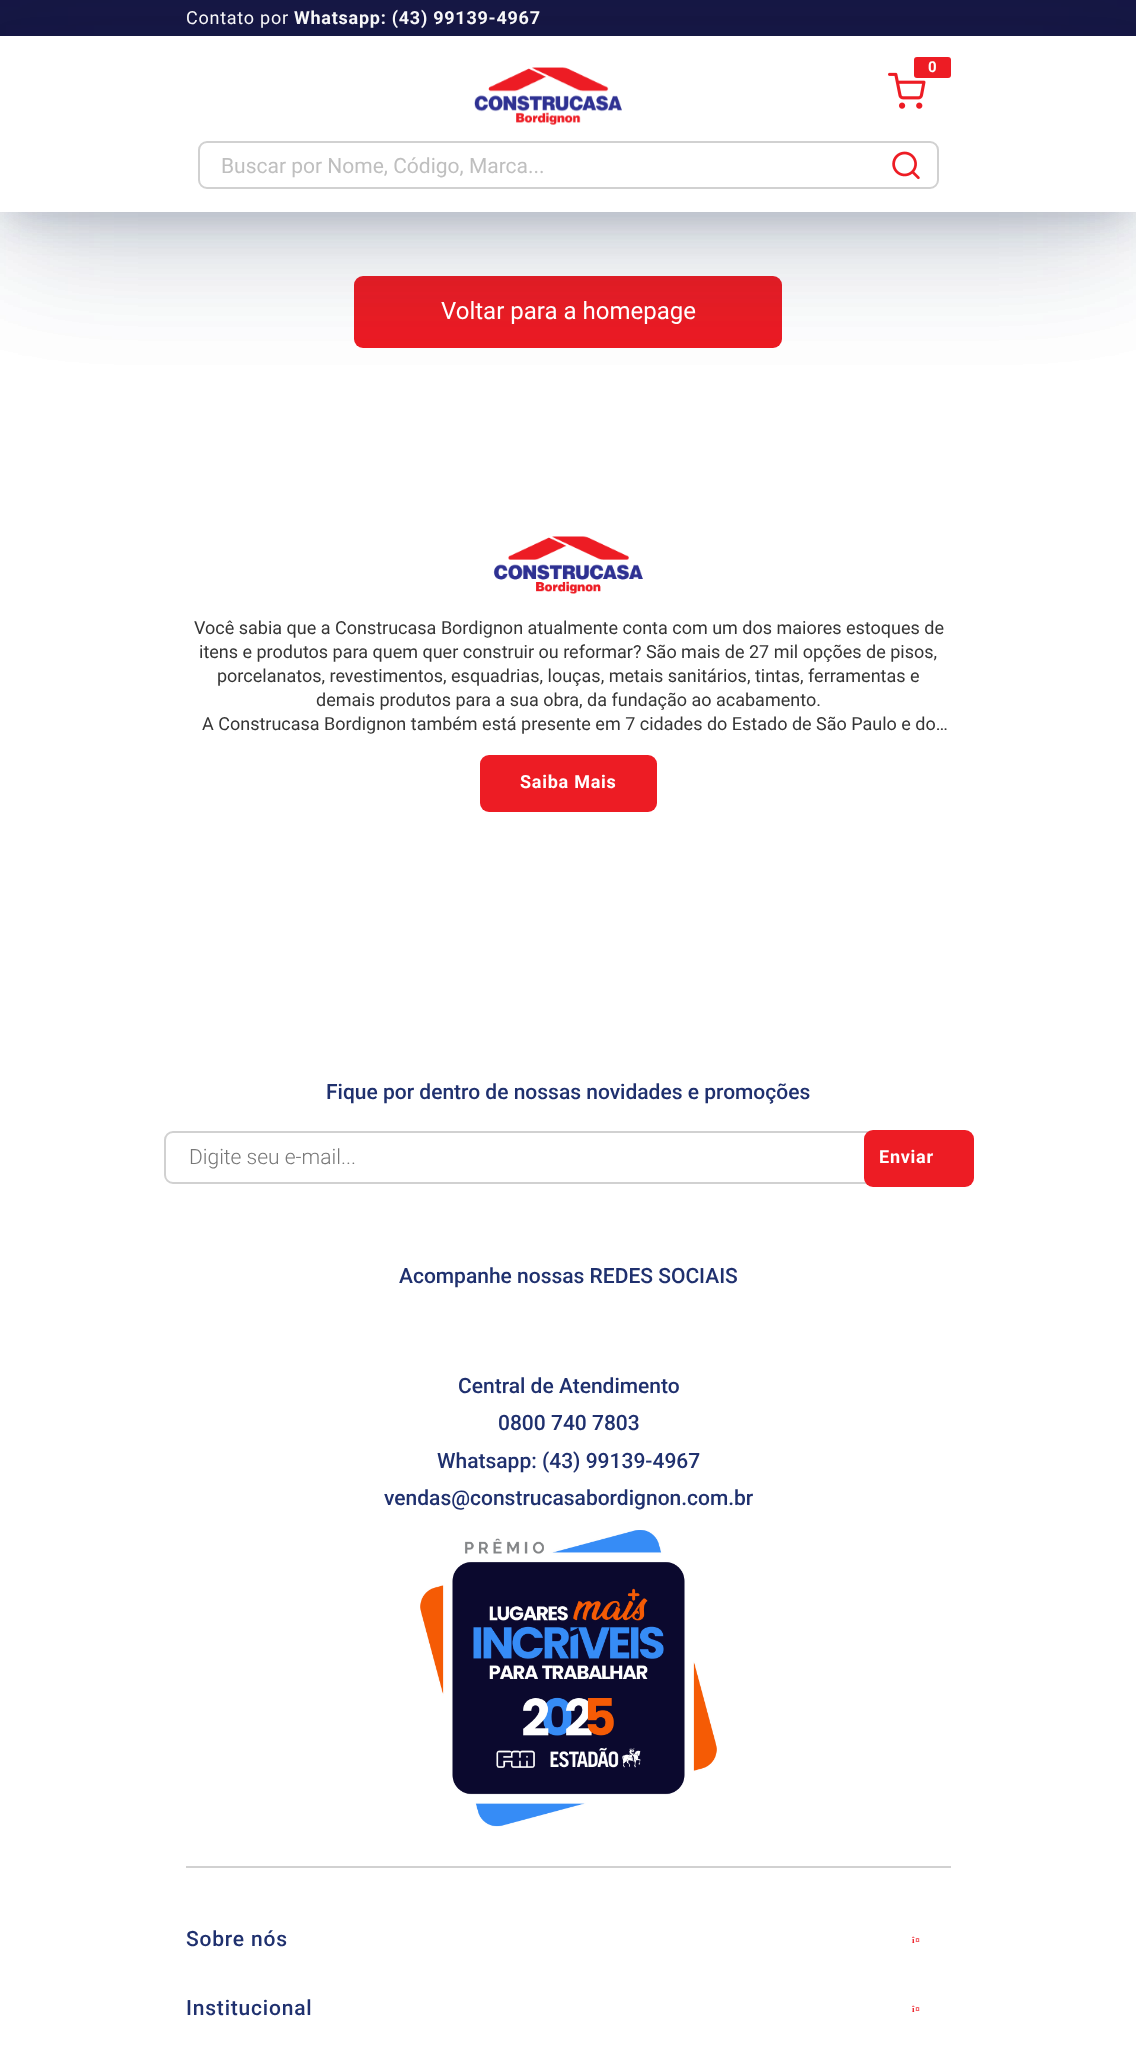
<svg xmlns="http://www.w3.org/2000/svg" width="1136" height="2048">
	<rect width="100%" height="100%" fill="#FFFFFF" />
	<rect x="354" y="276" width="428" height="72" rx="9" fill="#ED1C24" />
	<rect x="6" y="33" width="1125" height="200" fill="#18274B" fill-opacity="0.14" filter="blur(66px)" />
	<rect x="9" y="21" width="1119" height="194" fill="#18274B" fill-opacity="0.12" filter="blur(21px)" />
	<rect x="0" y="0" width="1136" height="36" fill="#161744" />
	<text x="186" y="24" font-family="Roboto" font-size="18" letter-spacing="0.75" fill="#FFFFFF">Contato por</text>
	<text x="294" y="24" font-family="Roboto" font-size="18" font-weight="700" letter-spacing="0.75" fill="#FFFFFF">Whatsapp: (43) 99139-4967</text>
	<rect x="6" y="69" width="1125" height="164" fill="#18274B" fill-opacity="0.14" filter="blur(66px)" />
	<rect x="9" y="57" width="1119" height="158" fill="#18274B" fill-opacity="0.12" filter="blur(21px)" />
	<rect x="0" y="36" width="1136" height="176" fill="#FFFFFF" />
	<image x="474" y="67" width="148" height="58" href="assets/img1.png" />
	<image x="888" y="72" width="38" height="37" href="assets/img2.png" />
	<rect x="914" y="57" width="37" height="21" rx="3" fill="#ED1C24" />
	<text x="928" y="72" font-family="Roboto" font-size="15" font-weight="700" fill="#FFFFFF">0</text>
	<rect x="199" y="142" width="739" height="46" rx="8" fill="none" stroke="#D1D1D1" stroke-width="2" />
	<text x="221" y="173" font-family="Roboto" font-size="21" fill="#BFBFBF">Buscar por Nome, Código, Marca...</text>
	<image x="892" y="151" width="28" height="29" href="assets/img3.png" />
	<text x="441" y="319" font-family="Roboto" font-size="24" fill="#FFFFFF">Voltar para a homepage</text>
	<image x="493" y="536" width="150" height="58" href="assets/img4.png" />
	<g font-family="Roboto" font-size="18" fill="#353535">
		<text x="194" y="634">Você sabia que a Construcasa Bordignon atualmente conta com um dos maiores estoques de</text>
		<text x="199" y="658">itens e produtos para quem quer construir ou reformar? São mais de 27 mil opções de pisos,</text>
		<text x="217" y="682">porcelanatos, revestimentos, esquadrias, louças, metais sanitários, tintas, ferramentas e</text>
		<text x="316" y="706">demais produtos para a sua obra, da fundação ao acabamento.</text>
		<text x="202" y="730">A Construcasa Bordignon também está presente em 7 cidades do Estado de São Paulo e do…</text>
	</g>
	<rect x="480" y="755" width="177" height="57" rx="9" fill="#ED1C24" />
	<text x="520" y="788" font-family="Roboto" font-size="18" font-weight="700" letter-spacing="0.75" fill="#FFFFFF">Saiba Mais</text>
	<text x="326" y="1099" font-family="Roboto" font-size="21" font-weight="500" fill="#1F306E">Fique por dentro de nossas novidades e promoções</text>
	<rect x="165" y="1132" width="713" height="51" rx="8" fill="none" stroke="#D1D1D1" stroke-width="2" />
	<text x="189" y="1164" font-family="Roboto" font-size="21" font-weight="300" fill="#777777">Digite seu e-mail...</text>
	<rect x="864" y="1130" width="110" height="57" rx="9" fill="#ED1C24" />
	<text x="879" y="1163" font-family="Roboto" font-size="18" font-weight="700" letter-spacing="0.75" fill="#FFFFFF">Enviar</text>
	<rect x="186" y="1866" width="765" height="2" fill="#D1D1D1" />
	<g font-family="Roboto" font-size="21" font-weight="500" fill="#1F306E">
		<text x="399" y="1283">Acompanhe nossas REDES SOCIAIS</text>
		<text x="458" y="1393">Central de Atendimento</text>
		<text x="498" y="1430">0800 740 7803</text>
		<text x="437" y="1468">Whatsapp: (43) 99139-4967</text>
		<text x="384" y="1505">vendas@construcasabordignon.com.br</text>
	</g>
	<image x="420" y="1530" width="297" height="297" href="assets/img5.png" />
	<text x="186" y="1946" font-family="Roboto" font-size="21" font-weight="500" letter-spacing="0.8" fill="#1F306E">Sobre nós</text>
	<text x="912" y="1943" font-family="Liberation Serif" font-size="9" font-weight="700" letter-spacing="0.8" fill="#ED1C24">î¤</text>
	<text x="186" y="2015" font-family="Roboto" font-size="21" font-weight="500" letter-spacing="0.8" fill="#1F306E">Institucional</text>
	<text x="912" y="2012" font-family="Liberation Serif" font-size="9" font-weight="700" letter-spacing="0.8" fill="#ED1C24">î¤</text>
</svg>
